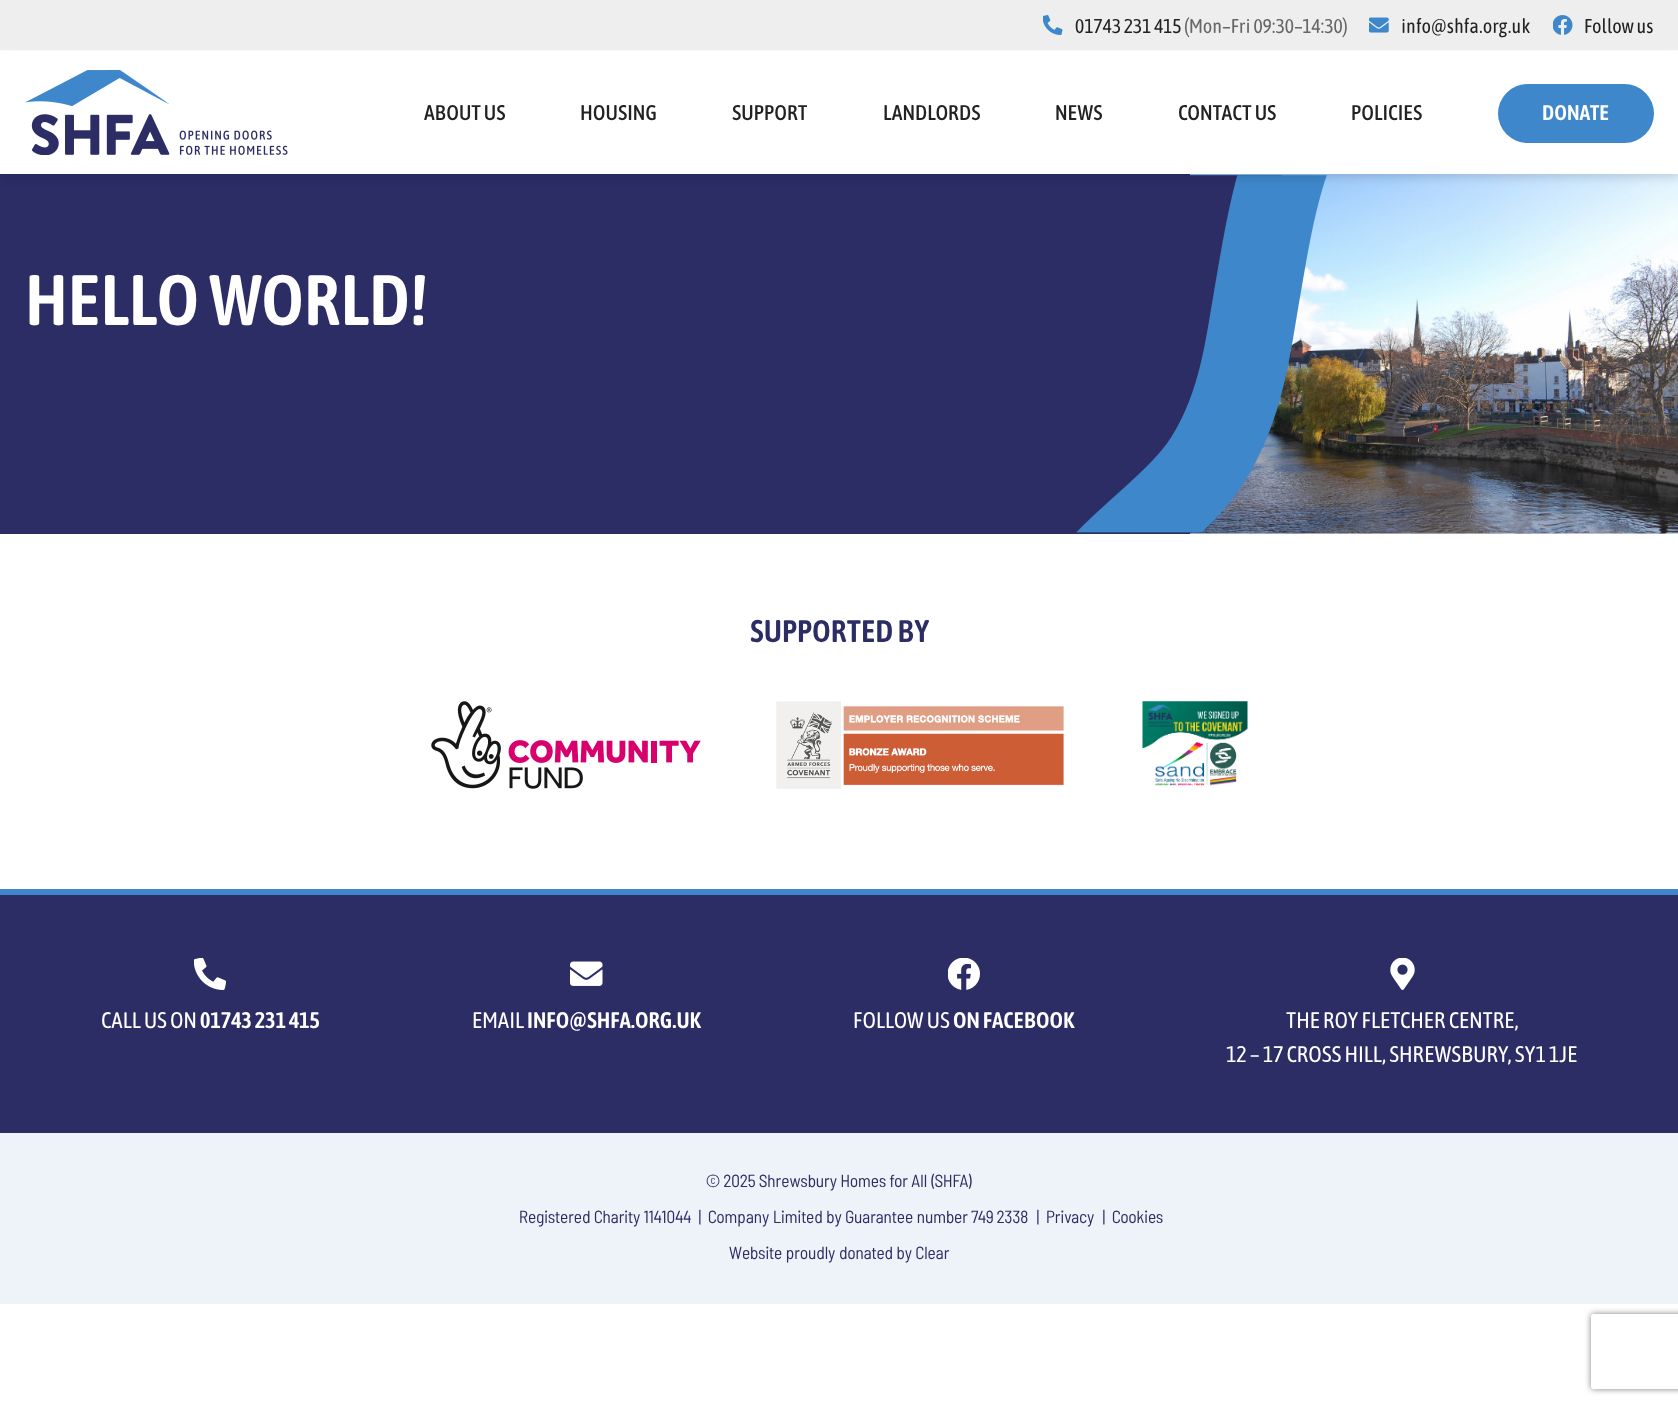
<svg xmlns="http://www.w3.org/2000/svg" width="1678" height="1406">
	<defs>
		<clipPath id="clip1"><path d="M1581 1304H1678V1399H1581ZM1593.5 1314H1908.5C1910 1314 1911 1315 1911 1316.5V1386.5C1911 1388 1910 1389 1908.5 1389H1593.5C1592 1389 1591 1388 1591 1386.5V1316.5C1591 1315 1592 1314 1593.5 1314Z" clip-rule="evenodd" /></clipPath>
	</defs>
	<rect width="100%" height="100%" fill="#FFFFFF" />
	<rect x="0" y="174" width="1190" height="360" fill="#2C2D65" />
	<image x="1190" y="174" width="488" height="360" href="assets/img5.png" />
	<image x="1076" y="175" width="251" height="358" href="assets/img6.png" />
	<rect x="0" y="55" width="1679" height="123" fill="#000000" fill-opacity="0.12" filter="blur(4px)" />
	<rect x="0" y="0" width="1678" height="50" fill="#EEEEEE" />
	<image x="1043" y="15" width="20" height="20" href="assets/img1.png" />
	<text x="1075" y="33" font-family="Asap Condensed" font-size="20" fill="#222222">01743 231 415</text>
	<text x="1184" y="33" font-family="Asap Condensed" font-size="20" fill="#666666">(Mon–Fri 09:30–14:30)</text>
	<image x="1369" y="17" width="20" height="16" href="assets/img2.png" />
	<text x="1401" y="33" font-family="Asap Condensed" font-size="20" fill="#222222">info@shfa.org.uk</text>
	<image x="1553" y="15" width="20" height="20" href="assets/img3.png" />
	<text x="1584" y="33" font-family="Asap Condensed" font-size="20" fill="#222222">Follow us</text>
	<rect x="0" y="51" width="1678" height="123" fill="#FFFFFF" />
	<image x="25" y="70" width="263" height="85" href="assets/img4.png" />
	<g font-family="Asap Condensed" font-size="21.25" font-weight="500" fill="#222222">
		<text x="424" y="120">ABOUT US</text>
		<text x="580" y="120">HOUSING</text>
		<text x="732" y="120">SUPPORT</text>
		<text x="883" y="120">LANDLORDS</text>
		<text x="1055" y="120">NEWS</text>
		<text x="1178" y="120">CONTACT US</text>
		<text x="1351" y="120">POLICIES</text>
	</g>
	<rect x="1498" y="84" width="156" height="59" rx="29.5" fill="#3E87CB" />
	<text x="1542" y="120" font-family="Asap Condensed" font-size="21.25" font-weight="600" fill="#FFFFFF">DONATE</text>
	<text x="25" y="325" font-family="Asap Condensed" font-size="71.25" font-weight="600" fill="#FFFFFF">HELLO WORLD!</text>
	<text x="750" y="642" font-family="Asap Condensed" font-size="31.25" font-weight="600" fill="#2C2D65">SUPPORTED BY</text>
	<image x="431" y="701" width="270" height="88" href="assets/img7.png" />
	<image x="776" y="701" width="289" height="88" href="assets/img8.png" />
	<image x="1142" y="701" width="106" height="85" href="assets/img9.png" />
	<rect x="0" y="895" width="1678" height="238" fill="#2C2D65" />
	<rect x="0" y="889" width="1678" height="6" fill="#3E87CB" />
	<image x="194" y="958" width="32" height="32" href="assets/img10.png" />
	<text x="101" y="1028" font-family="Asap Condensed" font-size="22.5" fill="#FFFFFF">CALL US ON</text>
	<text x="200" y="1028" font-family="Asap Condensed" font-size="22.5" font-weight="600" fill="#FFFFFF">01743 231 415</text>
	<image x="570" y="961" width="33" height="25" href="assets/img11.png" />
	<text x="472" y="1028" font-family="Asap Condensed" font-size="22.5" fill="#FFFFFF">EMAIL</text>
	<text x="527" y="1028" font-family="Asap Condensed" font-size="22.5" font-weight="600" fill="#FFFFFF">INFO@SHFA.ORG.UK</text>
	<image x="948" y="958" width="32" height="32" href="assets/img12.png" />
	<text x="853" y="1028" font-family="Asap Condensed" font-size="22.5" fill="#FFFFFF">FOLLOW US</text>
	<text x="953" y="1028" font-family="Asap Condensed" font-size="22.5" font-weight="600" fill="#FFFFFF">ON FACEBOOK</text>
	<image x="1390" y="958" width="25" height="32" href="assets/img13.png" />
	<g font-family="Asap Condensed" font-size="22.5" fill="#FFFFFF">
		<text x="1286" y="1028">THE ROY FLETCHER CENTRE,</text>
		<text x="1226" y="1062">12 – 17 CROSS HILL, SHREWSBURY, SY1 1JE</text>
	</g>
	<rect x="0" y="1133" width="1678" height="171" fill="#EDF3F8" />
	<g font-family="Barlow Semi Condensed" font-size="17.5" fill="#2C2D65">
		<text x="706" y="1187">© 2025 Shrewsbury Homes for All (SHFA)</text>
		<text x="519" y="1223">Registered Charity 1141044</text>
		<text x="698" y="1223">|</text>
		<text x="708" y="1223">Company Limited by Guarantee number 749 2338</text>
		<text x="1036" y="1223">|</text>
		<text x="1046" y="1223">Privacy</text>
		<text x="1102" y="1223">|</text>
		<text x="1112" y="1223">Cookies</text>
		<text x="729" y="1259">Website proudly donated by Clear</text>
	</g>
	<g clip-path="url(#clip1)">
		<rect x="1591" y="1314" width="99" height="75" rx="2.5" fill="#808080" filter="blur(3px)" />
	</g>
</svg>
